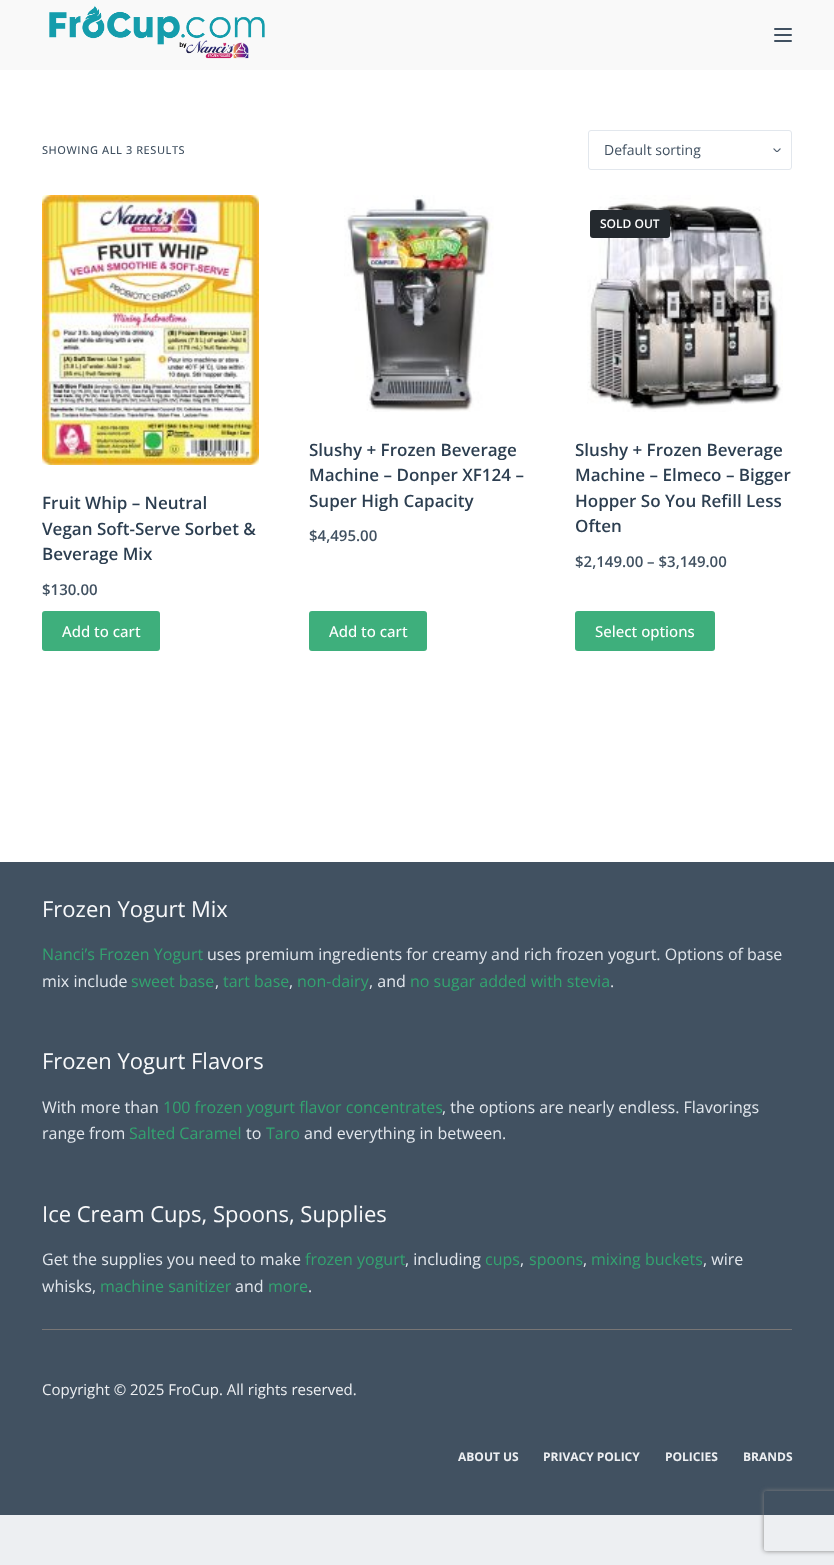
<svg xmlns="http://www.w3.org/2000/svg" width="834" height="1565">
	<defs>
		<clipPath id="clip1"><path d="M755 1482H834V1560H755ZM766 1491H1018C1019 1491 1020 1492 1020 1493V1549C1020 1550 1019 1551 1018 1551H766C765 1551 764 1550 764 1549V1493C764 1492 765 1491 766 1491Z" clip-rule="evenodd" /></clipPath>
	</defs>
	<rect width="100%" height="100%" fill="#FFFFFF" />
	<rect x="0" y="0" width="834" height="70" fill="#F9F9F9" />
	<image x="49" y="5" width="216" height="54" href="assets/img1.png" />
	<rect x="774" y="28" width="18" height="2" rx="1" fill="#415161" />
	<rect x="774" y="34" width="18" height="2" rx="1" fill="#415161" />
	<rect x="774" y="40" width="18" height="2" rx="1" fill="#415161" />
	<text x="42" y="154" font-family="Open Sans" font-size="11" font-weight="500" letter-spacing="0.55" fill="#415161">SHOWING ALL 3 RESULTS</text>
	<image x="773" y="148" width="8" height="4" href="assets/img2.png" />
	<rect x="588.5" y="130.5" width="203" height="39" rx="2.5" fill="none" stroke="#E2E7ED" />
	<text x="604" y="155" font-family="Open Sans" font-size="14" fill="#415161">Default sorting</text>
	<image x="42" y="195" width="217" height="270" href="assets/img3.png" />
	<g font-family="Open Sans" font-size="17" font-weight="600" fill="#2C3E50">
		<text x="42" y="509">Fruit Whip – Neutral</text>
		<text x="42" y="535">Vegan Soft-Serve Sorbet &amp;</text>
		<text x="42" y="560">Beverage Mix</text>
	</g>
	<text x="42" y="595" font-family="Open Sans" font-size="15" font-weight="600" fill="#415161">$130.00</text>
	<rect x="42" y="611" width="118" height="40" rx="3" fill="#3EAF7C" />
	<text x="62" y="637" font-family="Open Sans" font-size="15" font-weight="500" fill="#FFFFFF">Add to cart</text>
	<image x="344" y="195" width="150" height="217" href="assets/img4.png" />
	<g font-family="Open Sans" font-size="17" font-weight="600" fill="#2C3E50">
		<text x="309" y="456">Slushy + Frozen Beverage</text>
		<text x="309" y="481">Machine – Donper XF124 –</text>
		<text x="309" y="507">Super High Capacity</text>
	</g>
	<text x="309" y="541" font-family="Open Sans" font-size="15" font-weight="600" fill="#415161">$4,495.00</text>
	<rect x="309" y="611" width="118" height="40" rx="3" fill="#3EAF7C" />
	<text x="329" y="637" font-family="Open Sans" font-size="15" font-weight="500" fill="#FFFFFF">Add to cart</text>
	<image x="587" y="195" width="196" height="217" href="assets/img5.png" />
	<rect x="590" y="210" width="80" height="28" rx="3" fill="#24292E" />
	<text x="600" y="228" font-family="Open Sans" font-size="12" font-weight="600" fill="#FFFFFF">SOLD OUT</text>
	<g font-family="Open Sans" font-size="17" font-weight="600" fill="#2C3E50">
		<text x="575" y="456">Slushy + Frozen Beverage</text>
		<text x="575" y="481">Machine – Elmeco – Bigger</text>
		<text x="575" y="507">Hopper So You Refill Less</text>
		<text x="575" y="532">Often</text>
	</g>
	<text x="575" y="567" font-family="Open Sans" font-size="15" font-weight="600" fill="#415161">$2,149.00 – $3,149.00</text>
	<rect x="575" y="611" width="140" height="40" rx="3" fill="#3EAF7C" />
	<text x="595" y="637" font-family="Open Sans" font-size="15" font-weight="500" fill="#FFFFFF">Select options</text>
	<rect x="0" y="1515" width="834" height="50" fill="#EDEFF2" />
	<rect x="0" y="862" width="834" height="653" fill="#415161" />
	<text x="42" y="917" font-family="Open Sans" font-size="22" fill="#F8F9FB">Frozen Yogurt Mix</text>
	<text x="42" y="960" font-family="Open Sans" font-size="16" fill="#33A370">Nanci’s Frozen Yogurt</text>
	<g font-family="Open Sans" font-size="16" fill="#E2E7ED">
		<text x="207" y="960">uses premium ingredients for creamy and rich frozen yogurt. Options of base</text>
		<text x="42" y="987">mix include</text>
	</g>
	<text x="131" y="987" font-family="Open Sans" font-size="16" fill="#33A370">sweet base</text>
	<text x="215" y="987" font-family="Open Sans" font-size="16" fill="#E2E7ED">,</text>
	<text x="223" y="987" font-family="Open Sans" font-size="16" fill="#33A370">tart base</text>
	<text x="289" y="987" font-family="Open Sans" font-size="16" fill="#E2E7ED">,</text>
	<text x="297" y="987" font-family="Open Sans" font-size="16" fill="#33A370">non-dairy</text>
	<text x="369" y="987" font-family="Open Sans" font-size="16" fill="#E2E7ED">, and</text>
	<text x="410" y="987" font-family="Open Sans" font-size="16" fill="#33A370">no sugar added with stevia</text>
	<text x="610" y="987" font-family="Open Sans" font-size="16" fill="#E2E7ED">.</text>
	<text x="42" y="1069" font-family="Open Sans" font-size="22" fill="#F8F9FB">Frozen Yogurt Flavors</text>
	<text x="42" y="1113" font-family="Open Sans" font-size="16" fill="#E2E7ED">With more than</text>
	<text x="163" y="1113" font-family="Open Sans" font-size="16" fill="#33A370">100 frozen yogurt flavor concentrates</text>
	<g font-family="Open Sans" font-size="16" fill="#E2E7ED">
		<text x="442" y="1113">, the options are nearly endless. Flavorings</text>
		<text x="42" y="1139">range from</text>
	</g>
	<text x="129" y="1139" font-family="Open Sans" font-size="16" fill="#33A370">Salted Caramel</text>
	<text x="246" y="1139" font-family="Open Sans" font-size="16" fill="#E2E7ED">to</text>
	<text x="266" y="1139" font-family="Open Sans" font-size="16" fill="#33A370">Taro</text>
	<text x="304" y="1139" font-family="Open Sans" font-size="16" fill="#E2E7ED">and everything in between.</text>
	<text x="42" y="1222" font-family="Open Sans" font-size="22" fill="#F8F9FB">Ice Cream Cups, Spoons, Supplies</text>
	<text x="42" y="1265" font-family="Open Sans" font-size="16" fill="#E2E7ED">Get the supplies you need to make</text>
	<text x="305" y="1265" font-family="Open Sans" font-size="16" fill="#33A370">frozen yogurt</text>
	<text x="405" y="1265" font-family="Open Sans" font-size="16" fill="#E2E7ED">, including</text>
	<text x="485" y="1265" font-family="Open Sans" font-size="16" fill="#33A370">cups</text>
	<text x="520" y="1265" font-family="Open Sans" font-size="16" fill="#E2E7ED">,</text>
	<text x="529" y="1265" font-family="Open Sans" font-size="16" fill="#33A370">spoons</text>
	<text x="583" y="1265" font-family="Open Sans" font-size="16" fill="#E2E7ED">,</text>
	<text x="591" y="1265" font-family="Open Sans" font-size="16" fill="#33A370">mixing buckets</text>
	<g font-family="Open Sans" font-size="16" fill="#E2E7ED">
		<text x="703" y="1265">, wire</text>
		<text x="42" y="1292">whisks,</text>
	</g>
	<text x="100" y="1292" font-family="Open Sans" font-size="16" fill="#33A370">machine sanitizer</text>
	<text x="235" y="1292" font-family="Open Sans" font-size="16" fill="#E2E7ED">and</text>
	<text x="268" y="1292" font-family="Open Sans" font-size="16" fill="#33A370">more</text>
	<text x="308" y="1292" font-family="Open Sans" font-size="16" fill="#E2E7ED">.</text>
	<rect x="42" y="1329" width="750" height="1" fill="#777575" />
	<text x="42" y="1395" font-family="Open Sans" font-size="15" fill="#EDEFF2">Copyright © 2025 FroCup. All rights reserved.</text>
	<g font-family="Open Sans" font-size="12" font-weight="700" fill="#EDEFF2">
		<text x="458" y="1461">ABOUT US</text>
		<text x="543" y="1461">PRIVACY POLICY</text>
		<text x="665" y="1461">POLICIES</text>
		<text x="743" y="1461">BRANDS</text>
	</g>
	<g clip-path="url(#clip1)">
		<rect x="764" y="1491" width="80" height="60" rx="2" fill="#808080" filter="blur(2.5px)" />
	</g>
</svg>
